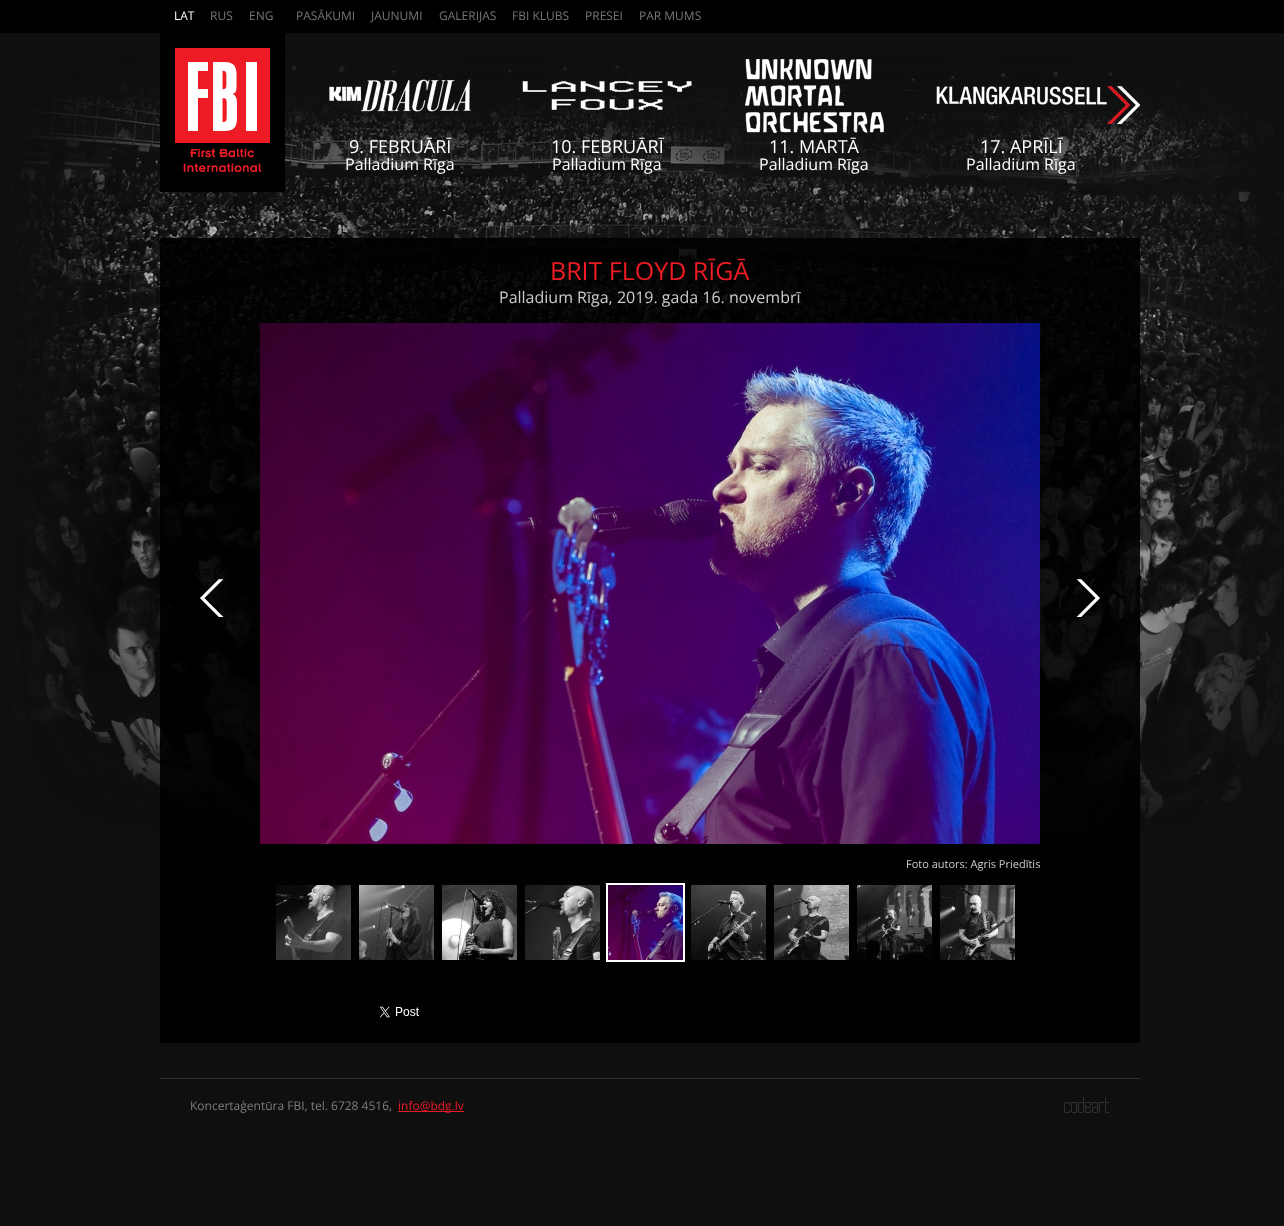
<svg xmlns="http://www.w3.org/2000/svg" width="1284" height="1226">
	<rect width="100%" height="100%" fill="#0F0F0F" />
	<rect x="0" y="0" width="1284" height="33" fill="#000000" />
	<text x="174" y="20" font-family="Open Sans" font-size="12" fill="#FFFFFF">LAT</text>
	<g font-family="Open Sans" font-size="12" fill="#777777">
		<text x="210" y="20">RUS</text>
		<text x="249" y="20">ENG</text>
		<text x="296" y="20">PASĀKUMI</text>
		<text x="371" y="20">JAUNUMI</text>
		<text x="439" y="20">GALERIJAS</text>
		<text x="512" y="20">FBI KLUBS</text>
		<text x="585" y="20">PRESEI</text>
		<text x="639" y="20">PAR MUMS</text>
	</g>
	<image x="9" y="40" width="1275" height="804" href="assets/img2.png" />
	<image x="0" y="33" width="1284" height="857" href="assets/img1.png" />
	<rect x="160" y="33" width="125" height="159" fill="#000000" />
	<image x="175" y="48" width="95" height="124" href="assets/img3.png" />
	<image x="1107" y="86" width="33" height="38" href="assets/img4.png" />
	<image x="329" y="79" width="142" height="33" href="assets/img5.png" />
	<text x="349" y="153" font-family="Open Sans" font-size="18" fill="#FFFFFF">9. FEBRUĀRĪ</text>
	<text x="345" y="170" font-family="Open Sans" font-size="16" fill="#FFFFFF">Palladium Rīga</text>
	<image x="522" y="81" width="170" height="29" href="assets/img6.png" />
	<text x="551" y="153" font-family="Open Sans" font-size="18" fill="#FFFFFF">10. FEBRUĀRĪ</text>
	<text x="552" y="170" font-family="Open Sans" font-size="16" fill="#FFFFFF">Palladium Rīga</text>
	<image x="745" y="59" width="139" height="74" href="assets/img7.png" />
	<text x="769" y="153" font-family="Open Sans" font-size="18" fill="#FFFFFF">11. MARTĀ</text>
	<text x="759" y="170" font-family="Open Sans" font-size="16" fill="#FFFFFF">Palladium Rīga</text>
	<image x="936" y="86" width="171" height="19" href="assets/img8.png" />
	<text x="980" y="153" font-family="Open Sans" font-size="18" fill="#FFFFFF">17. APRĪLĪ</text>
	<text x="966" y="170" font-family="Open Sans" font-size="16" fill="#FFFFFF">Palladium Rīga</text>
	<rect x="160" y="238" width="980" height="805" fill="#000000" fill-opacity="0.9" />
	<text x="550" y="280" font-family="Open Sans" font-size="25" fill="#ED1C24">BRIT FLOYD RĪGĀ</text>
	<text x="499" y="303" font-family="Open Sans" font-size="16" fill="#CCCCCC">Palladium Rīga, 2019. gada 16. novembrī</text>
	<image x="200" y="579" width="24" height="38" href="assets/img9.png" />
	<image x="1076" y="579" width="24" height="38" href="assets/img10.png" />
	<image x="260" y="323" width="780" height="521" href="assets/img11.png" />
	<text x="906" y="868" font-family="Open Sans" font-size="11" fill="#CCCCCC">Foto autors: Agris Priedītis</text>
	<image x="276" y="885" width="75" height="75" href="assets/img12.png" />
	<image x="359" y="885" width="75" height="75" href="assets/img13.png" />
	<image x="442" y="885" width="75" height="75" href="assets/img14.png" />
	<image x="525" y="885" width="75" height="75" href="assets/img15.png" />
	<rect x="607" y="884" width="77" height="77" fill="none" stroke="#FFFFFF" stroke-width="2" />
	<image x="608" y="885" width="75" height="75" href="assets/img16.png" />
	<image x="691" y="885" width="75" height="75" href="assets/img17.png" />
	<image x="774" y="885" width="75" height="75" href="assets/img18.png" />
	<image x="857" y="885" width="75" height="75" href="assets/img19.png" />
	<image x="940" y="885" width="75" height="75" href="assets/img20.png" />
	<image x="379" y="1006" width="40" height="12" href="assets/img21.png" />
	<rect x="160" y="1078" width="980" height="1" fill="#2F2F2F" />
	<text x="190" y="1110" font-family="Open Sans" font-size="12" fill="#7E7E7E">Koncertaģentūra FBI, tel. 6728 4516,</text>
	<rect x="398" y="1111" width="66" height="1" fill="#ED1C24" />
	<text x="398" y="1110" font-family="Open Sans" font-size="12" fill="#ED1C24">info@bdg.lv</text>
	<image x="1064" y="1097" width="45" height="16" href="assets/img22.png" />
</svg>
